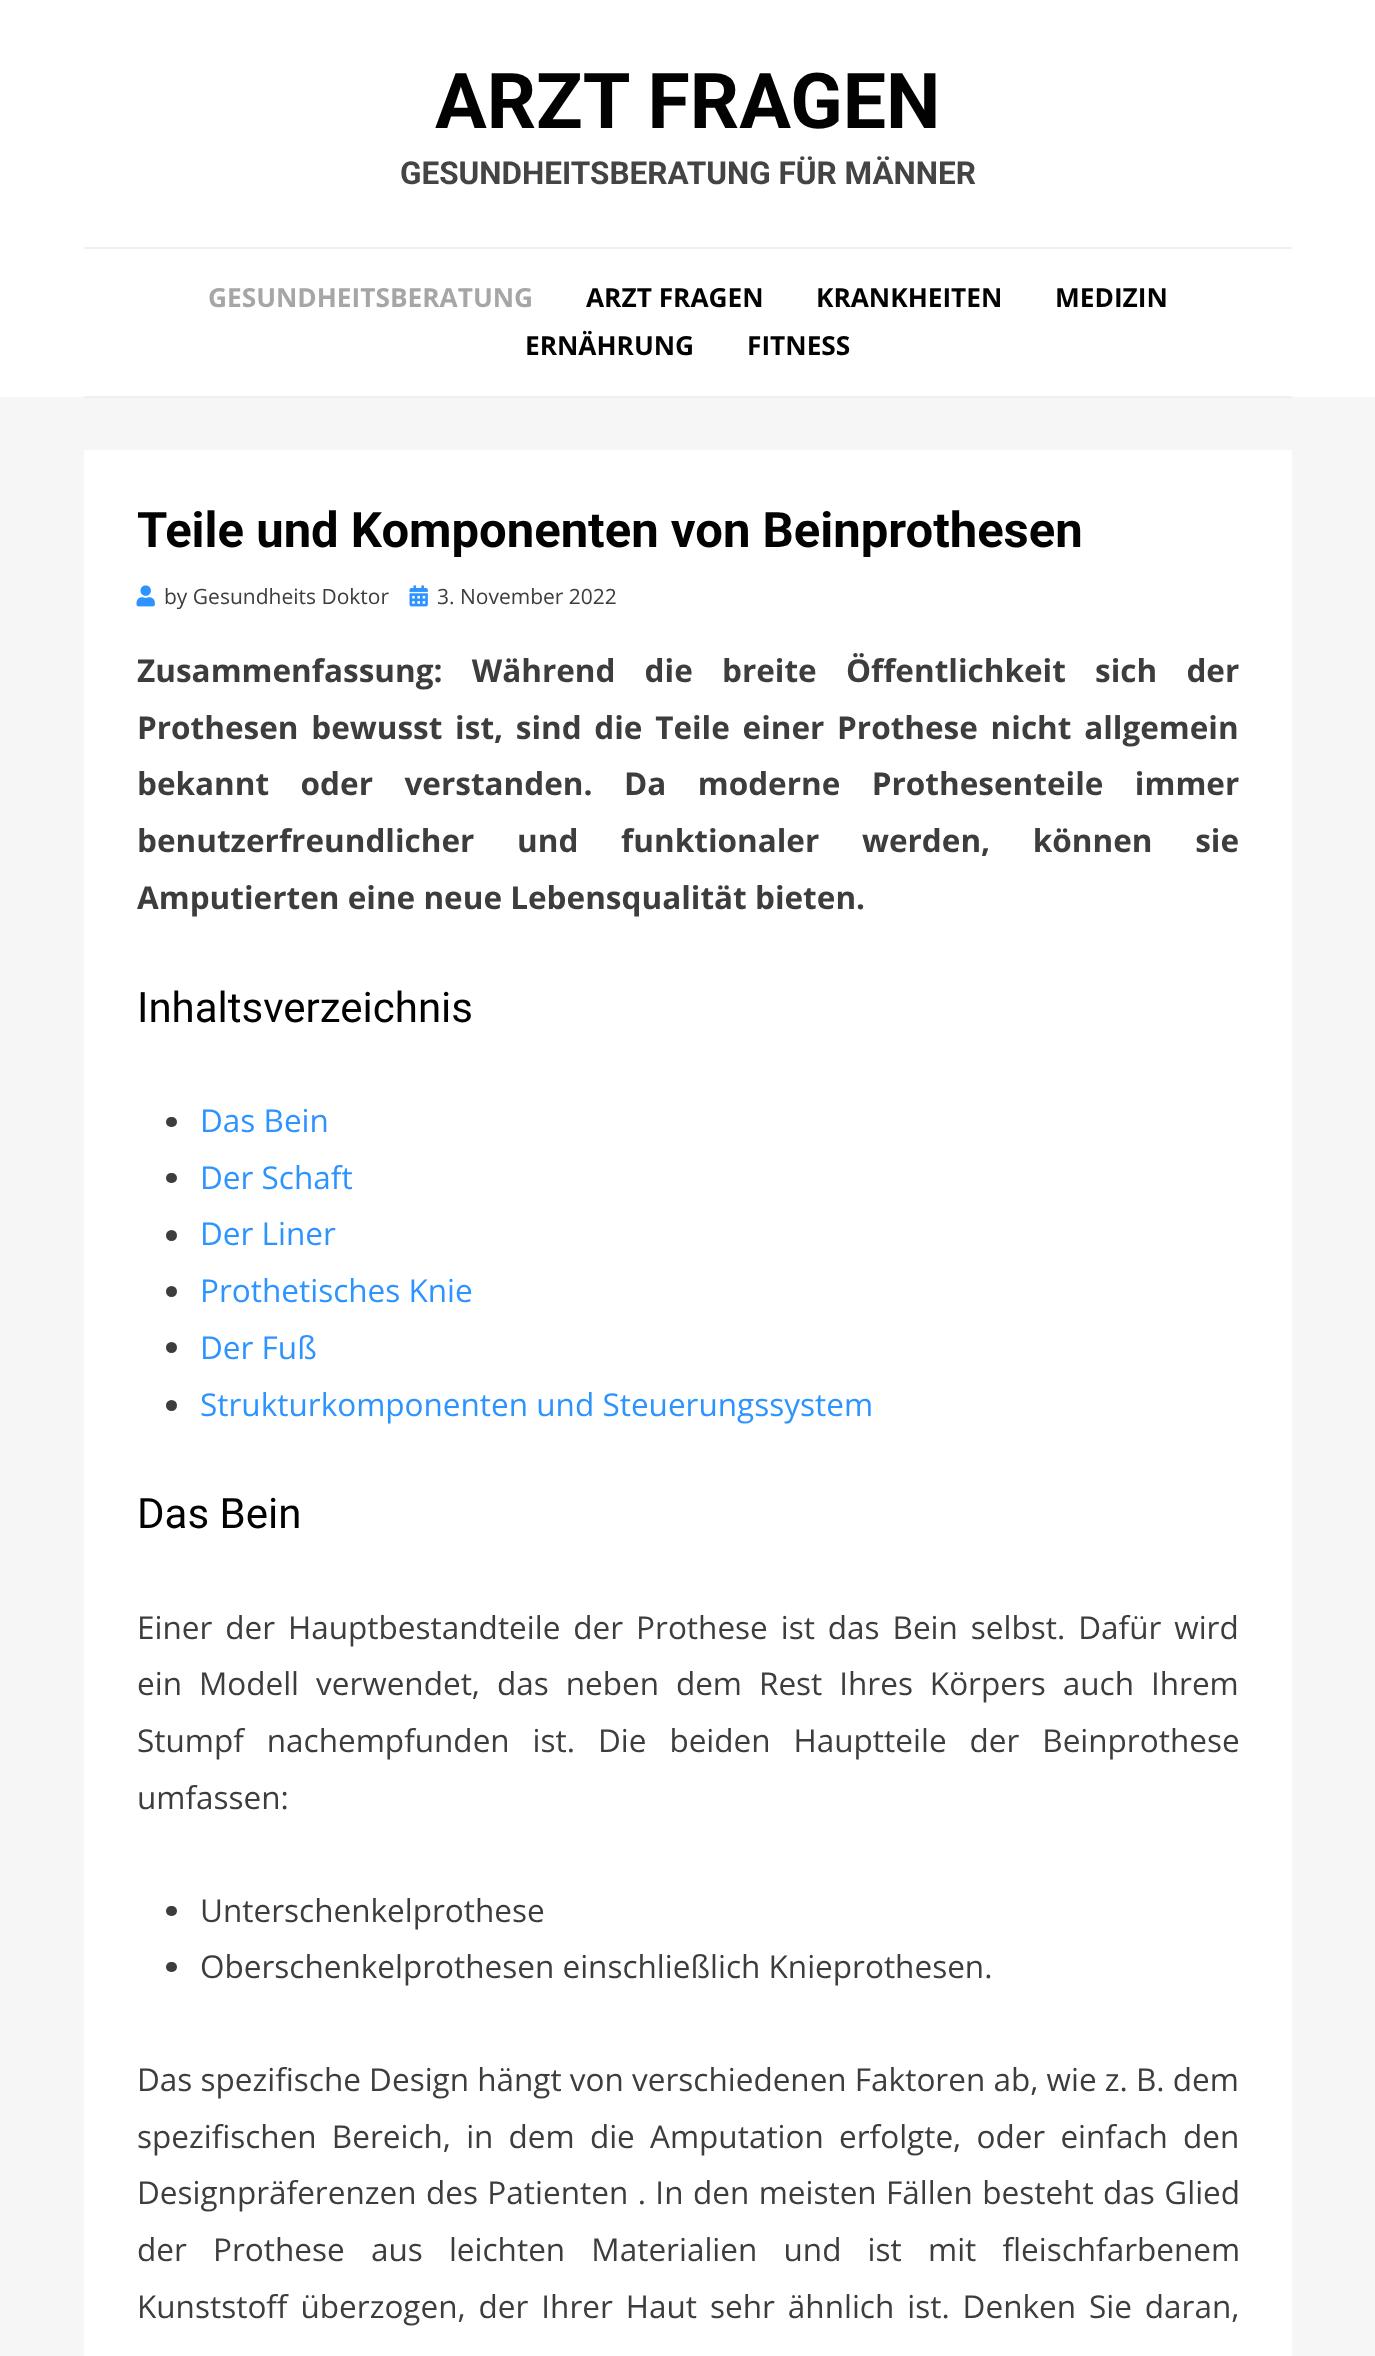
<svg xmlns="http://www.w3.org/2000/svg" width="1375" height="2356">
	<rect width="100%" height="100%" fill="#F6F6F6" />
	<rect x="0" y="0" width="1375" height="397" fill="#FFFFFF" />
	<text x="435" y="128" font-family="Roboto" font-size="77" font-weight="700" fill="#020202">ARZT FRAGEN</text>
	<text x="400" y="184" font-family="Roboto" font-size="31.5" font-weight="700" fill="#444444">GESUNDHEITSBERATUNG FÜR MÄNNER</text>
	<rect x="84" y="247" width="1208" height="2" fill="#F0F0F0" />
	<rect x="84" y="396" width="1208" height="2" fill="#F0F0F0" />
	<text x="208" y="307" font-family="Open Sans" font-size="26.25" font-weight="700" fill="#A6A6A6">GESUNDHEITSBERATUNG</text>
	<g font-family="Open Sans" font-size="26.25" font-weight="700" fill="#020202">
		<text x="586" y="307">ARZT FRAGEN</text>
		<text x="816" y="307">KRANKHEITEN</text>
		<text x="1055" y="307">MEDIZIN</text>
		<text x="525" y="355">ERNÄHRUNG</text>
		<text x="747" y="355">FITNESS</text>
	</g>
	<rect x="84" y="450" width="1208" height="1906" fill="#FFFFFF" />
	<text x="137" y="547" font-family="Roboto" font-size="49" font-weight="700" fill="#020202">Teile und Komponenten von Beinprothesen</text>
	<image x="136" y="585" width="19" height="22" href="assets/img1.png" />
	<text x="164" y="604" font-family="Open Sans" font-size="21" fill="#3D3D3D">by Gesundheits Doktor</text>
	<image x="409" y="585" width="19" height="22" href="assets/img2.png" />
	<text x="437" y="604" font-family="Open Sans" font-size="21" fill="#3D3D3D">3. November 2022</text>
	<g font-family="Open Sans" font-size="31.5" font-weight="700" fill="#3D3D3D">
		<text x="137" y="682" word-spacing="21">Zusammenfassung: Während die breite Öffentlichkeit sich der</text>
		<text x="137" y="739" word-spacing="4.5">Prothesen bewusst ist, sind die Teile einer Prothese nicht allgemein</text>
		<text x="137" y="795" word-spacing="23.25">bekannt oder verstanden. Da moderne Prothesenteile immer</text>
		<text x="137" y="852" word-spacing="34.5">benutzerfreundlicher und funktionaler werden, können sie</text>
		<text x="137" y="909">Amputierten eine neue Lebensqualität bieten.</text>
	</g>
	<text x="137" y="1022" font-family="Roboto" font-size="42" fill="#020202">Inhaltsverzeichnis</text>
	<rect x="166" y="1117" width="11" height="10" rx="5" fill="#3D3D3D" />
	<text x="200" y="1132" font-family="Open Sans" font-size="31.5" fill="#2D93FF">Das Bein</text>
	<rect x="166" y="1173" width="11" height="10" rx="5" fill="#3D3D3D" />
	<text x="200" y="1189" font-family="Open Sans" font-size="31.5" fill="#2D93FF">Der Schaft</text>
	<circle cx="171.5" cy="1235.5" r="5.5" fill="#3D3D3D" />
	<text x="200" y="1245" font-family="Open Sans" font-size="31.5" fill="#2D93FF">Der Liner</text>
	<circle cx="171.5" cy="1291.5" r="5.5" fill="#3D3D3D" />
	<text x="200" y="1302" font-family="Open Sans" font-size="31.5" fill="#2D93FF">Prothetisches Knie</text>
	<circle cx="171.5" cy="1347.5" r="5.5" fill="#3D3D3D" />
	<text x="200" y="1359" font-family="Open Sans" font-size="31.5" fill="#2D93FF">Der Fuß</text>
	<circle cx="171.5" cy="1405.5" r="5.5" fill="#3D3D3D" />
	<text x="200" y="1416" font-family="Open Sans" font-size="31.5" fill="#2D93FF">Strukturkomponenten und Steuerungssystem</text>
	<text x="137" y="1528" font-family="Roboto" font-size="42" fill="#020202">Das Bein</text>
	<g font-family="Open Sans" font-size="31.5" fill="#3D3D3D">
		<text x="137" y="1639" word-spacing="4.75">Einer der Hauptbestandteile der Prothese ist das Bein selbst. Dafür wird</text>
		<text x="137" y="1695" word-spacing="8.75">ein Modell verwendet, das neben dem Rest Ihres Körpers auch Ihrem</text>
		<text x="137" y="1752" word-spacing="14.75">Stumpf nachempfunden ist. Die beiden Hauptteile der Beinprothese</text>
		<text x="137" y="1809">umfassen:</text>
	</g>
	<rect x="166" y="1906" width="11" height="10" rx="5" fill="#3D3D3D" />
	<text x="200" y="1922" font-family="Open Sans" font-size="31.5" fill="#3D3D3D">Unterschenkelprothese</text>
	<rect x="166" y="1962" width="11" height="10" rx="5" fill="#3D3D3D" />
	<g font-family="Open Sans" font-size="31.5" fill="#3D3D3D">
		<text x="200" y="1978">Oberschenkelprothesen einschließlich Knieprothesen.</text>
		<text x="137" y="2091">Das spezifische Design hängt von verschiedenen Faktoren ab, wie z. B. dem</text>
		<text x="137" y="2148" word-spacing="7">spezifischen Bereich, in dem die Amputation erfolgte, oder einfach den</text>
		<text x="137" y="2204" word-spacing="1.25">Designpräferenzen des Patienten . In den meisten Fällen besteht das Glied</text>
		<text x="137" y="2261" word-spacing="18">der Prothese aus leichten Materialien und ist mit fleischfarbenem</text>
		<text x="137" y="2318" word-spacing="4.75">Kunststoff überzogen, der Ihrer Haut sehr ähnlich ist. Denken Sie daran,</text>
	</g>
</svg>
